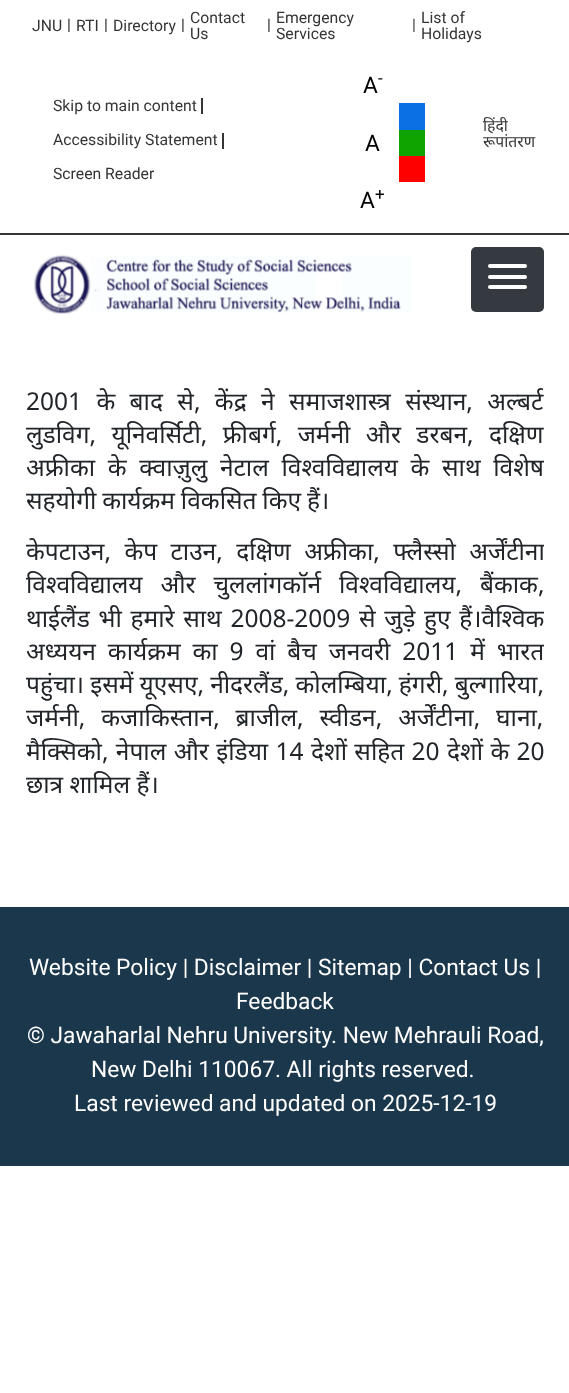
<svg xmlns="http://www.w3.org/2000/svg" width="569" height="1393">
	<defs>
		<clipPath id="clip1"><rect x="26" y="385" width="518" height="434" /></clipPath>
	</defs>
	<rect width="100%" height="100%" fill="#FFFFFF" />
	<rect x="0" y="233" width="569" height="2" fill="#373434" />
	<text x="32" y="31" font-family="Roboto" font-size="15.75" fill="#373434">JNU</text>
	<text x="67" y="30" font-family="Roboto" font-size="15.75" fill="#212529">|</text>
	<text x="76" y="31" font-family="Roboto" font-size="15.75" fill="#373434">RTI</text>
	<text x="104" y="30" font-family="Roboto" font-size="15.75" fill="#212529">|</text>
	<text x="113" y="31" font-family="Roboto" font-size="15.75" fill="#373434">Directory</text>
	<text x="181" y="30" font-family="Roboto" font-size="15.75" fill="#212529">|</text>
	<g font-family="Roboto" font-size="15.75" fill="#373434">
		<text x="190" y="23">Contact</text>
		<text x="190" y="39">Us</text>
	</g>
	<text x="267" y="30" font-family="Roboto" font-size="15.75" fill="#212529">|</text>
	<g font-family="Roboto" font-size="15.75" fill="#373434">
		<text x="276" y="23">Emergency</text>
		<text x="276" y="39">Services</text>
		<text x="412" y="30">|</text>
		<text x="421" y="23">List of</text>
		<text x="421" y="39">Holidays</text>
	</g>
	<rect x="201" y="98" width="2" height="16" fill="#373434" />
	<text x="53" y="111" font-family="Roboto" font-size="15.75" fill="#373434">Skip to main content</text>
	<rect x="222" y="133" width="2" height="16" fill="#373434" />
	<g font-family="Roboto" font-size="15.75" fill="#373434">
		<text x="53" y="145">Accessibility Statement</text>
		<text x="53" y="179">Screen Reader</text>
	</g>
	<text x="363" y="93" font-family="Roboto" font-size="22.75" fill="#000000">A</text>
	<text x="378" y="84" font-family="Roboto" font-size="17" fill="#000000">-</text>
	<g font-family="Roboto" font-size="22.75" fill="#000000">
		<text x="365" y="151">A</text>
		<text x="360" y="208">A</text>
	</g>
	<text x="375" y="200" font-family="Roboto" font-size="17" fill="#000000">+</text>
	<rect x="399" y="103" width="26" height="27" fill="#0A70E3" />
	<rect x="399" y="130" width="26" height="26" fill="#0FA400" />
	<rect x="399" y="156" width="26" height="26" fill="#FF0000" />
	<g font-family="Noto Sans" font-size="15.75" fill="#373434">
		<text x="483" y="131">हिंदी</text>
		<text x="483" y="147">रूपांतरण</text>
	</g>
	<image x="34" y="255" width="377" height="59" href="assets/img1.png" />
	<rect x="471" y="247" width="73" height="65" rx="5" fill="#343A40" />
	<rect x="488" y="264" width="39" height="4" rx="2" fill="#FFFFFF" />
	<rect x="488" y="275" width="39" height="4" rx="2" fill="#FFFFFF" />
	<rect x="488" y="285" width="39" height="4" rx="2" fill="#FFFFFF" />
	<g clip-path="url(#clip1)">
		<g font-family="Noto Sans" font-size="24.5" fill="#212529">
			<text x="26" y="410" word-spacing="8">2001 के बाद से, केंद्र ने समाजशास्त्र संस्थान, अल्बर्ट</text>
			<text x="26" y="443" word-spacing="9">लुडविग, यूनिवर्सिटी, फ्रीबर्ग, जर्मनी और डरबन, दक्षिण</text>
			<text x="26" y="476" word-spacing="6.25">अफ्रीका के क्वाज़ुलु नेटाल विश्वविद्यालय के साथ विशेष</text>
		</g>
	</g>
	<text x="26" y="509" word-spacing="-0.5" font-family="Noto Sans" font-size="24.5" fill="#212529">सहयोगी कार्यक्रम विकसित किए हैं।</text>
	<g clip-path="url(#clip1)">
		<text x="26" y="560" word-spacing="7" font-family="Noto Sans" font-size="24.5" fill="#212529">केपटाउन, केप टाउन, दक्षिण अफ्रीका, फ्लैस्सो अर्जेंटीना</text>
	</g>
	<text x="26" y="593" word-spacing="11.5" font-family="Noto Sans" font-size="24.5" fill="#212529">विश्वविद्यालय और चुललांगकॉर्न विश्वविद्यालय, बैंकाक,</text>
	<g clip-path="url(#clip1)">
		<g font-family="Noto Sans" font-size="24.5" fill="#212529">
			<text x="26" y="627" word-spacing="2.25">थाईलैंड भी हमारे साथ 2008-2009 से जुड़े हुए हैं।वैश्विक</text>
			<text x="26" y="660" word-spacing="5.5">अध्ययन कार्यक्रम का 9 वां बैच जनवरी 2011 में भारत</text>
		</g>
	</g>
	<g font-family="Noto Sans" font-size="24.5" fill="#212529">
		<text x="26" y="693" word-spacing="-0.25">पहुंचा। इसमें यूएसए, नीदरलैंड, कोलम्बिया, हंगरी, बुल्गारिया,</text>
		<text x="26" y="726" word-spacing="9.5">जर्मनी, कजाकिस्तान, ब्राजील, स्वीडन, अर्जेंटीना, घाना,</text>
	</g>
	<g clip-path="url(#clip1)">
		<text x="26" y="760" word-spacing="1" font-family="Noto Sans" font-size="24.5" fill="#212529">मैक्सिको, नेपाल और इंडिया 14 देशों सहित 20 देशों के 20</text>
	</g>
	<text x="26" y="793" font-family="Noto Sans" font-size="24.5" fill="#212529">छात्र शामिल हैं।</text>
	<rect x="0" y="907" width="569" height="259" fill="#1B374C" />
	<g font-family="Roboto" font-size="22.75" fill="#FFFFFF">
		<text x="29" y="975">Website Policy | Disclaimer | Sitemap | Contact Us |</text>
		<text x="236" y="1009">Feedback</text>
		<text x="27" y="1043">© Jawaharlal Nehru University. New Mehrauli Road,</text>
		<text x="91" y="1077">New Delhi 110067. All rights reserved.</text>
		<text x="74" y="1111">Last reviewed and updated on 2025-12-19</text>
	</g>
</svg>
